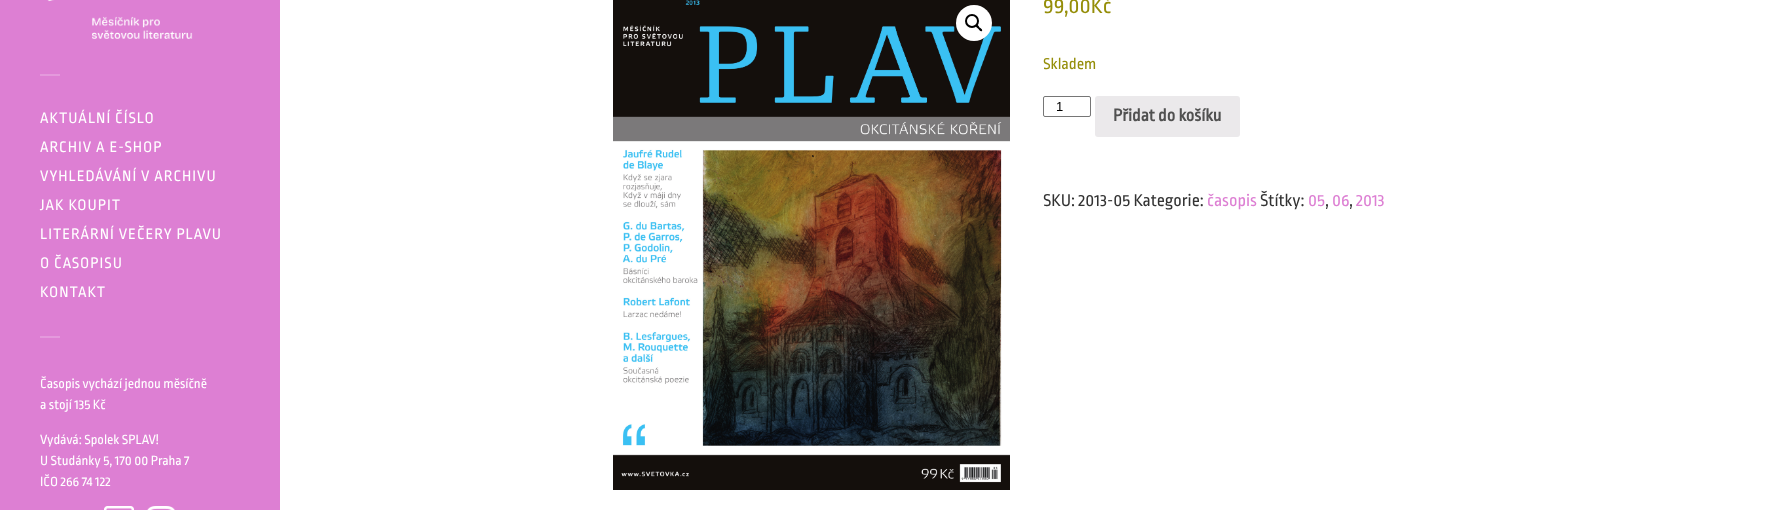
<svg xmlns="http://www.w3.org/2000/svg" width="1773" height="510">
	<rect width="100%" height="100%" fill="#FFFFFF" />
	<rect x="0" y="0" width="280" height="510" fill="#DD7FD3" />
	<image x="47" y="0" width="146" height="39" href="assets/img1.png" />
	<rect x="40" y="74" width="20" height="2" fill="#E499DC" />
	<g font-family="Ropa Sans" font-size="16" letter-spacing="1" fill="#FFFFFF">
		<text x="40" y="123">AKTUÁLNÍ ČÍSLO</text>
		<text x="40" y="152">ARCHIV A E-SHOP</text>
		<text x="40" y="181">VYHLEDÁVÁNÍ V ARCHIVU</text>
		<text x="40" y="210">JAK KOUPIT</text>
		<text x="40" y="239">LITERÁRNÍ VEČERY PLAVU</text>
		<text x="40" y="268">O ČASOPISU</text>
		<text x="40" y="297">KONTAKT</text>
	</g>
	<rect x="40" y="336" width="20" height="2" fill="#E499DC" />
	<g font-family="Ropa Sans" font-size="14" fill="#FFFFFF">
		<text x="40" y="388">Časopis vychází jednou měsíčně</text>
		<text x="40" y="409">a stojí 135 Kč</text>
		<text x="40" y="444">Vydává: Spolek SPLAV!</text>
		<text x="40" y="465">U Studánky 5, 170 00 Praha 7</text>
		<text x="40" y="486">IČO 266 74 122</text>
	</g>
	<image x="104" y="506" width="30" height="4" href="assets/img2.png" />
	<image x="147" y="506" width="28" height="4" href="assets/img3.png" />
	<image x="613" y="0" width="397" height="490" href="assets/img4.png" />
	<circle cx="974" cy="23" r="18" fill="#FFFFFF" />
	<circle cx="972" cy="21" r="6" fill="none" stroke="#000000" stroke-width="2" />
	<path d="M976 25C977.5 24 979 26.5 979.5 27.5C980.5 28 983 29.5 982 31C980.5 32 979 29.5 978 28.5C977.5 28 975 26.5 976 25Z" fill="#000000" />
	<text x="1043" y="13" font-family="Ropa Sans" font-size="22.5" fill="#958E09">99,00Kč</text>
	<text x="1043" y="69" font-family="Ropa Sans" font-size="16.5" fill="#958E09">Skladem</text>
	<rect x="1043.5" y="96.5" width="47" height="20" rx="1.5" fill="none" stroke="#767676" />
	<text x="1056" y="111" font-family="Liberation Sans" font-size="13" fill="#000000">1</text>
	<rect x="1095" y="96" width="145" height="41" rx="3" fill="#EBE9EB" />
	<text x="1113" y="121" font-family="Ropa Sans" font-size="18" font-weight="700" fill="#515151">Přidat do košíku</text>
	<text x="1043" y="206" font-family="Ropa Sans" font-size="18" fill="#333333">SKU: 2013-05 Kategorie:</text>
	<text x="1207" y="206" font-family="Ropa Sans" font-size="18" fill="#DD7FD3">časopis</text>
	<text x="1260" y="206" font-family="Ropa Sans" font-size="18" fill="#333333">Štítky:</text>
	<text x="1308" y="206" font-family="Ropa Sans" font-size="18" fill="#DD7FD3">05</text>
	<text x="1325" y="206" font-family="Ropa Sans" font-size="18" fill="#333333">,</text>
	<text x="1332" y="206" font-family="Ropa Sans" font-size="18" fill="#DD7FD3">06</text>
	<text x="1349" y="206" font-family="Ropa Sans" font-size="18" fill="#333333">,</text>
	<text x="1356" y="206" font-family="Ropa Sans" font-size="18" fill="#DD7FD3">2013</text>
</svg>
